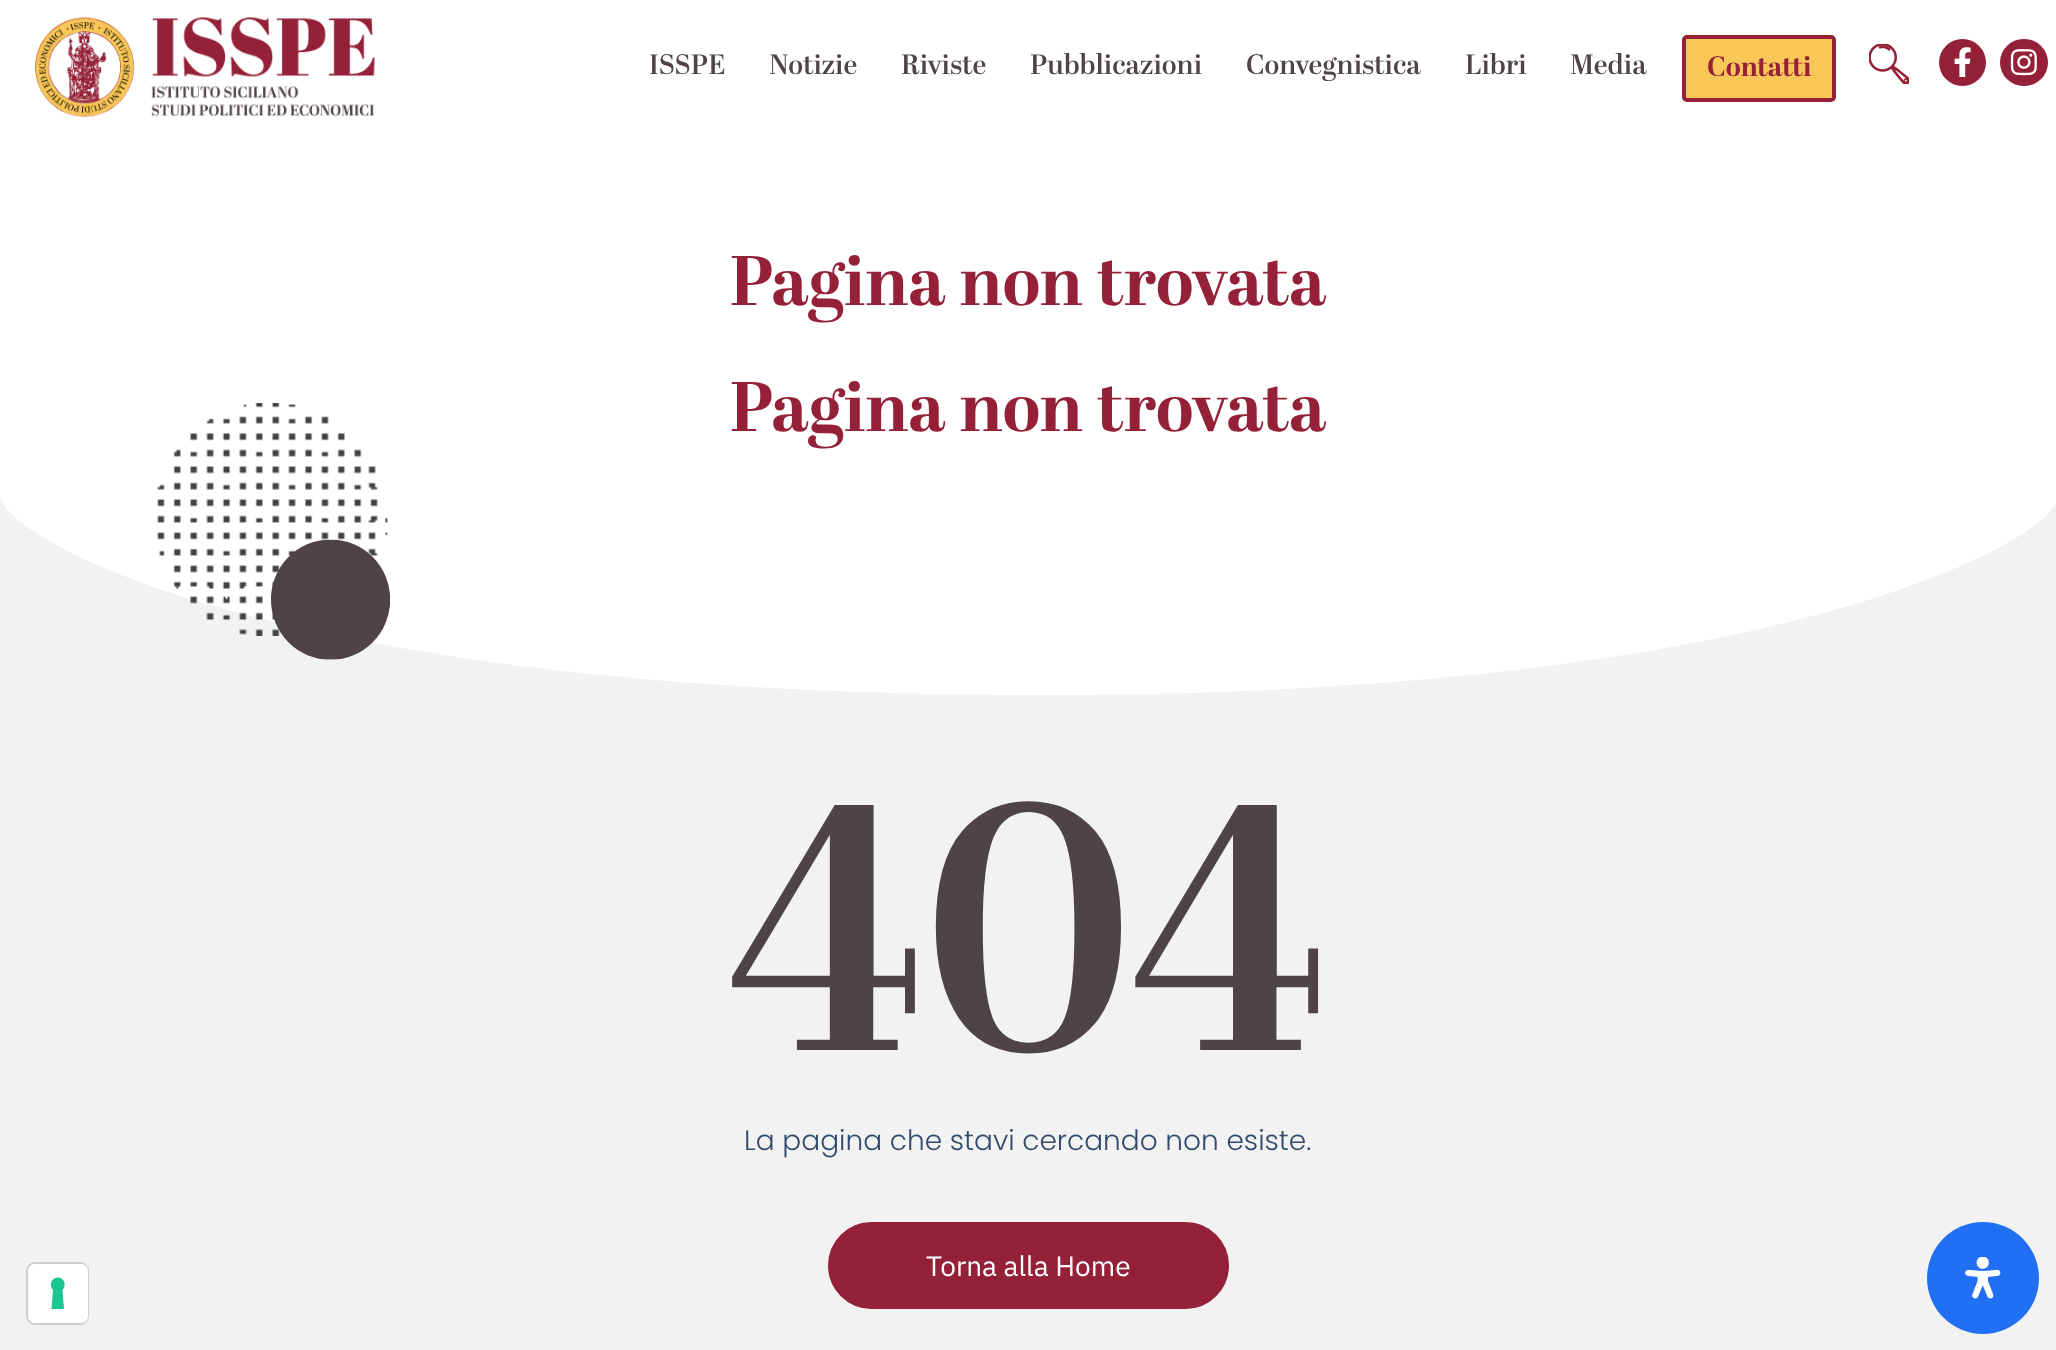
<svg xmlns="http://www.w3.org/2000/svg" width="2056" height="1350">
	<rect width="100%" height="100%" fill="#FFFFFF" />
	<image x="35" y="17" width="340" height="101" href="assets/img1.png" />
	<g font-family="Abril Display" font-size="28" font-weight="600" fill="#4E4345">
		<text x="649" y="74">ISSPE</text>
		<text x="769" y="74">Notizie</text>
		<text x="901" y="74">Riviste</text>
		<text x="1030" y="74">Pubblicazioni</text>
		<text x="1246" y="74">Convegnistica</text>
		<text x="1465" y="74">Libri</text>
		<text x="1570" y="74">Media</text>
	</g>
	<rect x="1684" y="37" width="150" height="63" rx="3" fill="#F9C758" stroke="#942137" stroke-width="4" />
	<text x="1707" y="76" font-family="Abril Display" font-size="28" font-weight="700" fill="#942137">Contatti</text>
	<image x="1869" y="44" width="40" height="40" href="assets/img2.png" />
	<circle cx="1962.5" cy="62.5" r="23.5" fill="#942137" />
	<image x="1954" y="47" width="17" height="30" href="assets/img3.png" />
	<rect x="2000" y="39" width="48" height="47" rx="23.5" fill="#942137" />
	<image x="2010" y="49" width="27" height="27" href="assets/img4.png" />
	<text x="730" y="305" font-family="Abril Display" font-size="70" font-weight="700" fill="#942137">Pagina non trovata</text>
	<path d="M1029 695C261 693 1 536 0 495V701H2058V497C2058 535 1797 697 1029 695Z" fill="#F2F2F2" />
	<image x="157" y="403" width="233" height="257" href="assets/img5.png" />
	<text x="730" y="431" font-family="Abril Display" font-size="70" font-weight="700" fill="#942137">Pagina non trovata</text>
	<rect x="0" y="701" width="2056" height="649" fill="#F2F2F2" />
	<rect x="27" y="1263" width="61" height="61" rx="8" fill="none" stroke="#CECECE" stroke-width="2" />
	<rect x="28" y="1264" width="60" height="59" rx="7" fill="#FFFFFF" />
	<path d="M58 1277.5C64 1277.5 67 1285.5 62.5 1290L64 1309H51.5L53 1290C48.5 1285.5 51.5 1277.5 58 1277.5Z" fill="#1CC691" fill-rule="evenodd" />
	<text x="729" y="1050" font-family="Abril Display" font-size="350" font-weight="600" fill="#4E4345">404</text>
	<text x="744" y="1150" font-family="Poppins" font-size="28" font-weight="300" fill="#324A6D">La pagina che stavi cercando non esiste.</text>
	<rect x="829" y="1223" width="399" height="85" rx="42.5" fill="#952138" stroke="#952138" stroke-width="2" />
	<text x="926" y="1276" font-family="IBM Plex Sans" font-size="28" fill="#FFFFFF">Torna alla Home</text>
	<circle cx="1983" cy="1278" r="56" fill="#216FF3" />
	<image x="1965" y="1257" width="36" height="42" href="assets/img6.png" />
</svg>
